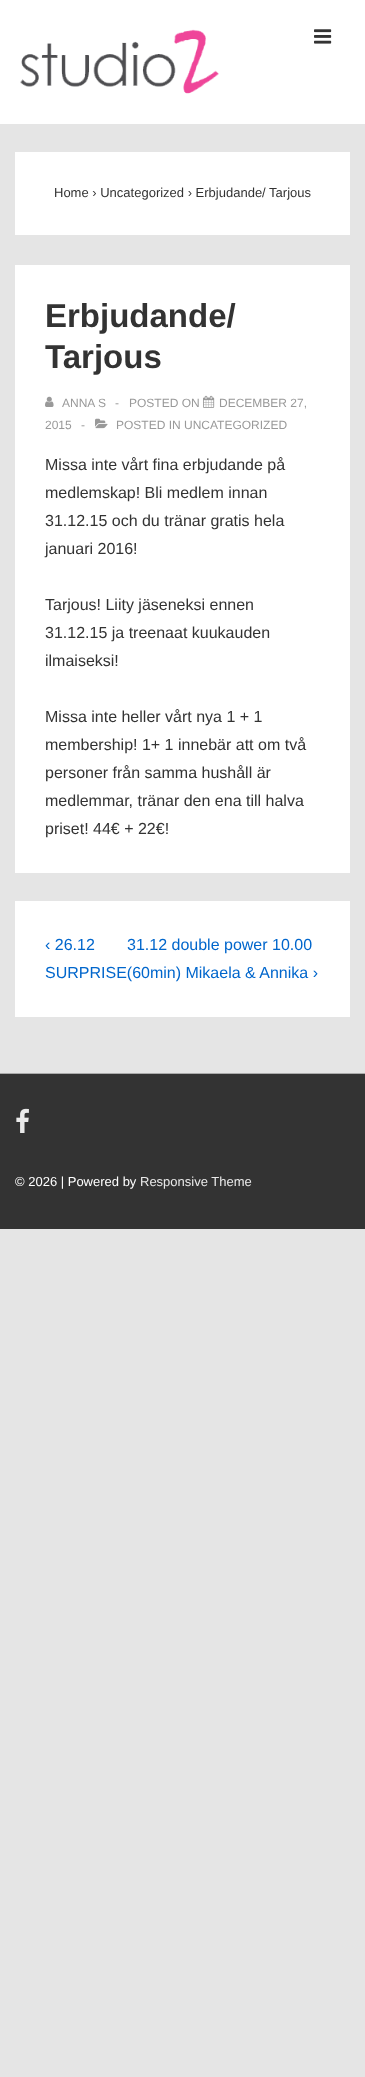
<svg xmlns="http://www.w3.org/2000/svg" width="365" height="2077">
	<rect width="100%" height="100%" fill="#E5E5E5" />
	<rect x="0" y="0" width="365" height="124" fill="#FFFFFF" />
	<image x="20" y="29" width="199" height="65" href="assets/img1.png" />
	<image x="314" y="29" width="18" height="15" href="assets/img2.png" />
	<rect x="15" y="152" width="335" height="83" fill="#FFFFFF" />
	<text x="54" y="197" font-family="Liberation Sans" font-size="13" fill="#333333">Home › Uncategorized › Erbjudande/ Tarjous</text>
	<rect x="15" y="265" width="335" height="608" fill="#FFFFFF" />
	<g font-family="Liberation Sans" font-size="33" font-weight="700" fill="#333333">
		<text x="45" y="327">Erbjudande/</text>
		<text x="45" y="368">Tarjous</text>
	</g>
	<image x="45" y="396" width="9" height="11" href="assets/img3.png" />
	<g font-family="Liberation Sans" font-size="12" fill="#999999">
		<text x="62" y="407">ANNA S</text>
		<text x="115" y="407">-</text>
		<text x="129" y="407">POSTED ON</text>
	</g>
	<image x="203" y="395" width="12" height="13" href="assets/img4.png" />
	<g font-family="Liberation Sans" font-size="12" fill="#999999">
		<text x="219" y="407">DECEMBER 27,</text>
		<text x="45" y="429">2015</text>
		<text x="81" y="429">-</text>
	</g>
	<image x="95" y="418" width="13" height="11" href="assets/img5.png" />
	<text x="116" y="429" font-family="Liberation Sans" font-size="12" fill="#999999">POSTED IN UNCATEGORIZED</text>
	<g font-family="Liberation Sans" font-size="16" fill="#333333">
		<text x="45" y="470">Missa inte vårt fina erbjudande på</text>
		<text x="45" y="498">medlemskap! Bli medlem innan</text>
		<text x="45" y="526">31.12.15 och du tränar gratis hela</text>
		<text x="45" y="554">januari 2016!</text>
		<text x="45" y="610">Tarjous! Liity jäseneksi ennen</text>
		<text x="45" y="638">31.12.15 ja treenaat kuukauden</text>
		<text x="45" y="666">ilmaiseksi!</text>
		<text x="45" y="722">Missa inte heller vårt nya 1 + 1</text>
		<text x="45" y="750">membership! 1+ 1 innebär att om två</text>
		<text x="45" y="778">personer från samma hushåll är</text>
		<text x="45" y="806">medlemmar, tränar den ena till halva</text>
		<text x="45" y="834">priset! 44€ + 22€!</text>
	</g>
	<rect x="15" y="901" width="335" height="116" fill="#FFFFFF" />
	<g font-family="Liberation Sans" font-size="16" fill="#0066CC">
		<text x="45" y="950">‹ 26.12</text>
		<text x="45" y="978">SURPRISE(60min) Mikaela &amp; Annika ›</text>
		<text x="127" y="950">31.12 double power 10.00</text>
	</g>
	<rect x="0" y="1074" width="365" height="155" fill="#333333" />
	<rect x="0" y="1073" width="365" height="1" fill="#AAAAAA" />
	<image x="16" y="1108" width="13" height="25" href="assets/img6.png" />
	<text x="15" y="1186" font-family="Liberation Sans" font-size="13" fill="#FFFFFF">© 2026 | Powered by</text>
	<text x="140" y="1186" font-family="Liberation Sans" font-size="13" fill="#EAEAEA">Responsive Theme</text>
</svg>
